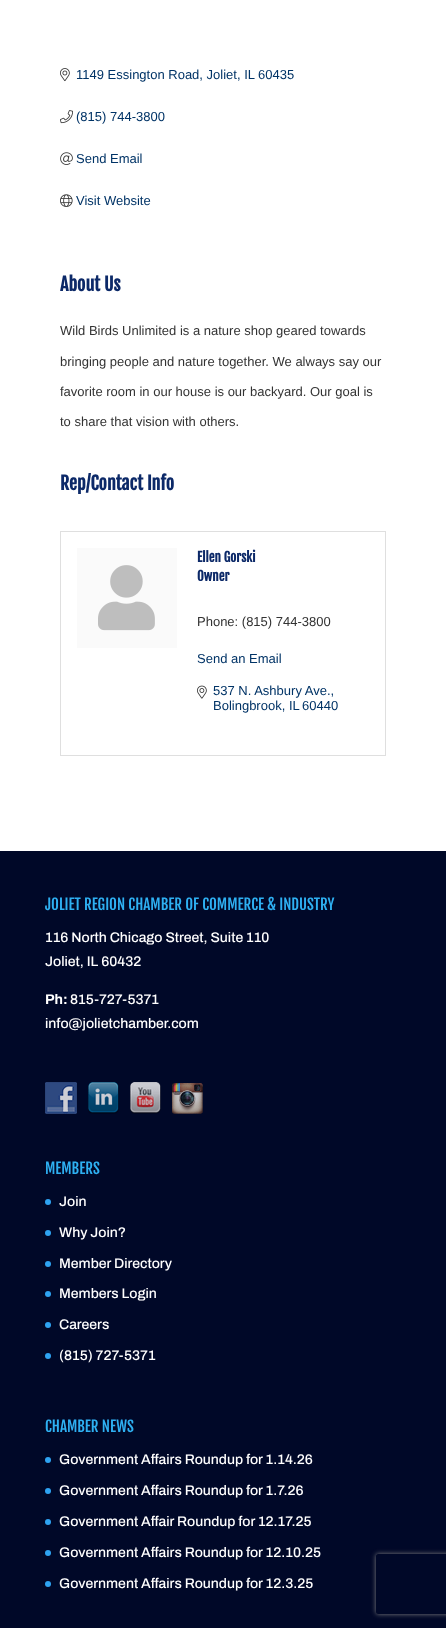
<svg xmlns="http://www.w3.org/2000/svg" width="446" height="1628">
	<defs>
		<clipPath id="clip1"><path d="M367 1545H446V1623H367ZM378 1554H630C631 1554 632 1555 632 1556V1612C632 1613 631 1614 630 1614H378C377 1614 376 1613 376 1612V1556C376 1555 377 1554 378 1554Z" clip-rule="evenodd" /></clipPath>
	</defs>
	<rect width="100%" height="100%" fill="#FFFFFF" />
	<image x="60" y="68" width="10" height="14" href="assets/img1.png" />
	<g font-family="Liberation Sans" font-size="13" fill="#003366">
		<text x="76" y="79">1149 Essington Road, Joliet, IL</text>
		<text x="258" y="79">60435</text>
	</g>
	<image x="60" y="110" width="13" height="14" href="assets/img2.png" />
	<text x="76" y="121" font-family="Liberation Sans" font-size="13" fill="#003366">(815) 744-3800</text>
	<image x="60" y="152" width="13" height="13" href="assets/img3.png" />
	<text x="76" y="163" font-family="Liberation Sans" font-size="13" fill="#003366">Send Email</text>
	<image x="60" y="194" width="13" height="13" href="assets/img4.png" />
	<text x="76" y="205" font-family="Liberation Sans" font-size="13" fill="#003366">Visit Website</text>
	<text x="60" y="291" font-family="Fjalla One" font-size="18" font-weight="700" fill="#0C2968">About Us</text>
	<g font-family="Liberation Sans" font-size="13" fill="#333333">
		<text x="60" y="335">Wild Birds Unlimited is a nature shop geared towards</text>
		<text x="60" y="366">bringing people and nature together. We always say our</text>
		<text x="60" y="396">favorite room in our house is our backyard. Our goal is</text>
		<text x="60" y="426">to share that vision with others.</text>
	</g>
	<text x="60" y="490" font-family="Fjalla One" font-size="18" font-weight="700" fill="#0C2968">Rep/Contact Info</text>
	<rect x="60.5" y="531.5" width="325" height="224" fill="none" stroke="#DFDFDF" />
	<rect x="77" y="548" width="100" height="100" fill="#FAFAFA" />
	<image x="98" y="565" width="57" height="66" href="assets/img5.png" />
	<g font-family="Fjalla One" font-size="13" font-weight="700" fill="#0C2968">
		<text x="197" y="562">Ellen Gorski</text>
		<text x="197" y="581">Owner</text>
	</g>
	<text x="197" y="626" font-family="Liberation Sans" font-size="13" fill="#333333">Phone: (815) 744-3800</text>
	<text x="197" y="663" font-family="Liberation Sans" font-size="13" fill="#003366">Send an Email</text>
	<image x="197" y="685" width="10" height="14" href="assets/img6.png" />
	<g font-family="Liberation Sans" font-size="13" fill="#003366">
		<text x="213" y="695">537 N. Ashbury Ave.,</text>
		<text x="213" y="710">Bolingbrook, IL</text>
		<text x="302" y="710">60440</text>
	</g>
	<rect x="0" y="851" width="446" height="777" fill="#000828" />
	<text x="45" y="910" font-family="Fjalla One" font-size="15" fill="#2EB0F2">JOLIET REGION CHAMBER OF COMMERCE &amp; INDUSTRY</text>
	<g font-family="Archivo" font-size="14" font-weight="500" fill="#FFFFFF">
		<text x="45" y="942">116 North Chicago Street, Suite 110</text>
		<text x="45" y="966">Joliet, IL 60432</text>
	</g>
	<text x="45" y="1004" font-family="Archivo" font-size="14" font-weight="700" fill="#FFFFFF">Ph:</text>
	<g font-family="Archivo" font-size="14" font-weight="500" fill="#FFFFFF">
		<text x="70" y="1004">815-727-5371</text>
		<text x="45" y="1028">info@jolietchamber.com</text>
	</g>
	<image x="45" y="1082" width="32" height="32" href="assets/img7.png" />
	<image x="88" y="1082" width="31" height="32" href="assets/img8.png" />
	<image x="130" y="1082" width="31" height="32" href="assets/img9.png" />
	<image x="172" y="1083" width="31" height="31" href="assets/img10.png" />
	<text x="45" y="1174" font-family="Fjalla One" font-size="15" fill="#2EB0F2">MEMBERS</text>
	<circle cx="48" cy="1202" r="3" fill="#2EA3F2" />
	<text x="59" y="1206" font-family="Archivo" font-size="14" font-weight="500" fill="#FFFFFF">Join</text>
	<circle cx="48" cy="1233" r="3" fill="#2EA3F2" />
	<text x="59" y="1237" font-family="Archivo" font-size="14" font-weight="500" fill="#FFFFFF">Why Join?</text>
	<circle cx="48" cy="1264" r="3" fill="#2EA3F2" />
	<text x="59" y="1268" font-family="Archivo" font-size="14" font-weight="500" fill="#FFFFFF">Member Directory</text>
	<circle cx="48" cy="1294" r="3" fill="#2EA3F2" />
	<text x="59" y="1298" font-family="Archivo" font-size="14" font-weight="500" fill="#FFFFFF">Members Login</text>
	<circle cx="48" cy="1325" r="3" fill="#2EA3F2" />
	<text x="59" y="1329" font-family="Archivo" font-size="14" font-weight="500" fill="#FFFFFF">Careers</text>
	<circle cx="48" cy="1356" r="3" fill="#2EA3F2" />
	<text x="59" y="1360" font-family="Archivo" font-size="14" font-weight="500" fill="#FFFFFF">(815) 727-5371</text>
	<text x="45" y="1432" font-family="Fjalla One" font-size="15" fill="#2EB0F2">CHAMBER NEWS</text>
	<circle cx="48" cy="1460" r="3" fill="#2EA3F2" />
	<text x="59" y="1464" font-family="Archivo" font-size="14" font-weight="500" fill="#FFFFFF">Government Affairs Roundup for 1.14.26</text>
	<circle cx="48" cy="1491" r="3" fill="#2EA3F2" />
	<text x="59" y="1495" font-family="Archivo" font-size="14" font-weight="500" fill="#FFFFFF">Government Affairs Roundup for 1.7.26</text>
	<circle cx="48" cy="1522" r="3" fill="#2EA3F2" />
	<text x="59" y="1526" font-family="Archivo" font-size="14" font-weight="500" fill="#FFFFFF">Government Affair Roundup for 12.17.25</text>
	<circle cx="48" cy="1553" r="3" fill="#2EA3F2" />
	<text x="59" y="1557" font-family="Archivo" font-size="14" font-weight="500" fill="#FFFFFF">Government Affairs Roundup for 12.10.25</text>
	<circle cx="48" cy="1584" r="3" fill="#2EA3F2" />
	<text x="59" y="1588" font-family="Archivo" font-size="14" font-weight="500" fill="#FFFFFF">Government Affairs Roundup for 12.3.25</text>
	<g clip-path="url(#clip1)">
		<rect x="376" y="1554" width="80" height="60" rx="2" fill="#808080" filter="blur(2.5px)" />
	</g>
</svg>
